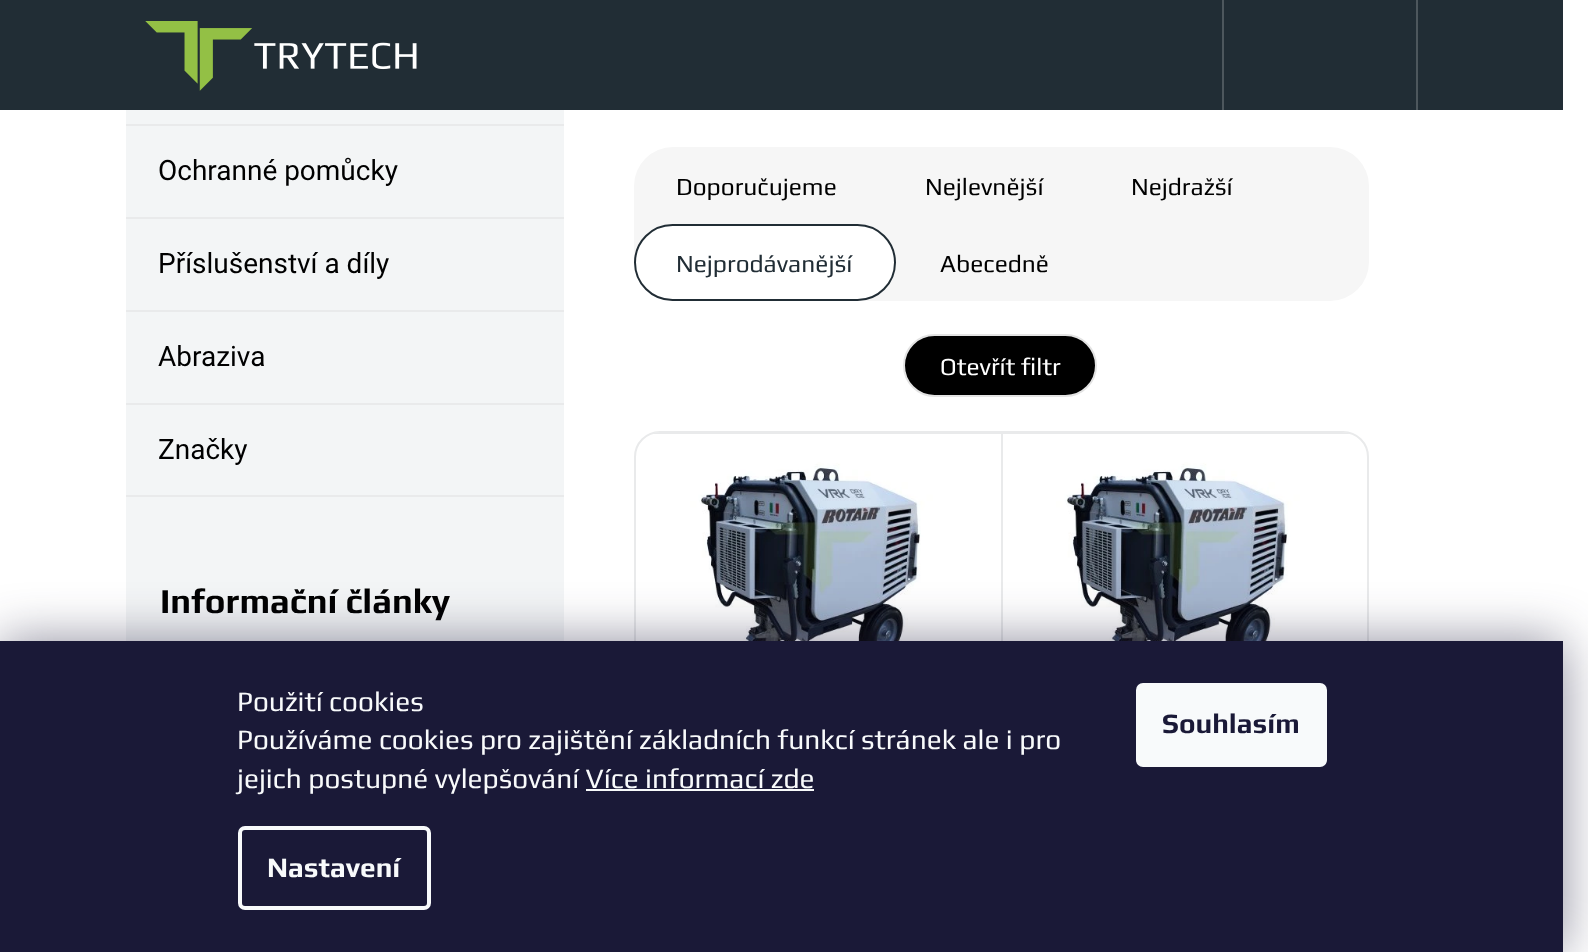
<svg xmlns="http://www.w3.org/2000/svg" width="1588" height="952">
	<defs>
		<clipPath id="clip1"><rect x="635" y="432" width="732" height="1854" rx="25" /></clipPath>
	</defs>
	<rect width="100%" height="100%" fill="#FFFFFF" />
	<rect x="0" y="0" width="1563" height="110" fill="#212D35" />
	<image x="145" y="21" width="272" height="70" href="assets/img1.png" />
	<rect x="1222" y="0" width="2" height="110" fill="#4D575D" />
	<rect x="1416" y="0" width="2" height="110" fill="#4D575D" />
	<rect x="126" y="110" width="438" height="531" fill="#F3F5F6" />
	<rect x="126" y="124" width="438" height="2" fill="#E9EAEB" />
	<text x="158" y="180" font-family="Roboto" font-size="28" fill="#000000">Ochranné pomůcky</text>
	<rect x="126" y="217" width="438" height="2" fill="#E9EAEB" />
	<text x="158" y="273" font-family="Roboto" font-size="28" fill="#000000">Příslušenství a díly</text>
	<rect x="126" y="310" width="438" height="2" fill="#E9EAEB" />
	<text x="158" y="366" font-family="Roboto" font-size="28" fill="#000000">Abraziva</text>
	<rect x="126" y="403" width="438" height="2" fill="#E9EAEB" />
	<text x="158" y="459" font-family="Roboto" font-size="28" fill="#000000">Značky</text>
	<rect x="126" y="495" width="438" height="2" fill="#E9EAEB" />
	<text x="160" y="613" font-family="Play" font-size="35" font-weight="700" fill="#000000">Informační články</text>
	<rect x="634" y="147" width="735" height="154" rx="39" fill="#F6F6F6" />
	<g font-family="Play" font-size="24.5" fill="#000000">
		<text x="676" y="195">Doporučujeme</text>
		<text x="925" y="195">Nejlevnější</text>
		<text x="1131" y="195">Nejdražší</text>
	</g>
	<rect x="635" y="225" width="260" height="75" rx="37.5" fill="#FFFFFF" stroke="#212D35" stroke-width="2" />
	<text x="676" y="272" font-family="Play" font-size="24.5" fill="#212D35">Nejprodávanější</text>
	<text x="940" y="272" font-family="Play" font-size="24.5" fill="#000000">Abecedně</text>
	<rect x="904" y="335" width="192" height="61" rx="30.5" fill="#000000" stroke="#E3E3E3" stroke-width="2" />
	<text x="940" y="375" font-family="Play" font-size="24.5" fill="#FFFFFF">Otevřít filtr</text>
	<rect x="635" y="432" width="733" height="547" rx="25" fill="none" stroke="#E9EAEB" stroke-width="2" />
	<image x="653" y="432" width="329" height="209" href="assets/img2.png" />
	<g clip-path="url(#clip1)">
		<rect x="650" y="432" width="702" height="2" fill="#E9EAEB" />
	</g>
	<rect x="1001" y="432" width="2" height="209" fill="#E9EAEB" />
	<image x="1018" y="432" width="331" height="209" href="assets/img3.png" />
	<g clip-path="url(#clip1)">
		<rect x="1001" y="432" width="351" height="2" fill="#E9EAEB" />
	</g>
	<rect x="0" y="641" width="1563" height="311" fill="#1B1939" fill-opacity="0.5" filter="blur(26px)" />
	<rect x="0" y="641" width="1563" height="311" fill="#1A1937" />
	<g font-family="Play" font-size="28" fill="#F8FAFB">
		<text x="237" y="711">Použití cookies</text>
		<text x="237" y="749">Používáme cookies pro zajištění základních funkcí stránek ale i pro</text>
		<text x="237" y="788">jejich postupné vylepšování Více informací zde</text>
	</g>
	<rect x="586" y="789" width="228" height="2" fill="#F8FAFB" />
	<rect x="240" y="828" width="189" height="80" rx="5" fill="none" stroke="#F8FAFB" stroke-width="4" />
	<text x="267" y="877" font-family="Play" font-size="28" font-weight="700" fill="#F8FAFB">Nastavení</text>
	<rect x="1136" y="683" width="191" height="84" rx="7" fill="#F8FAFB" />
	<text x="1162" y="733" font-family="Play" font-size="28" font-weight="700" fill="#1A1937">Souhlasím</text>
</svg>
